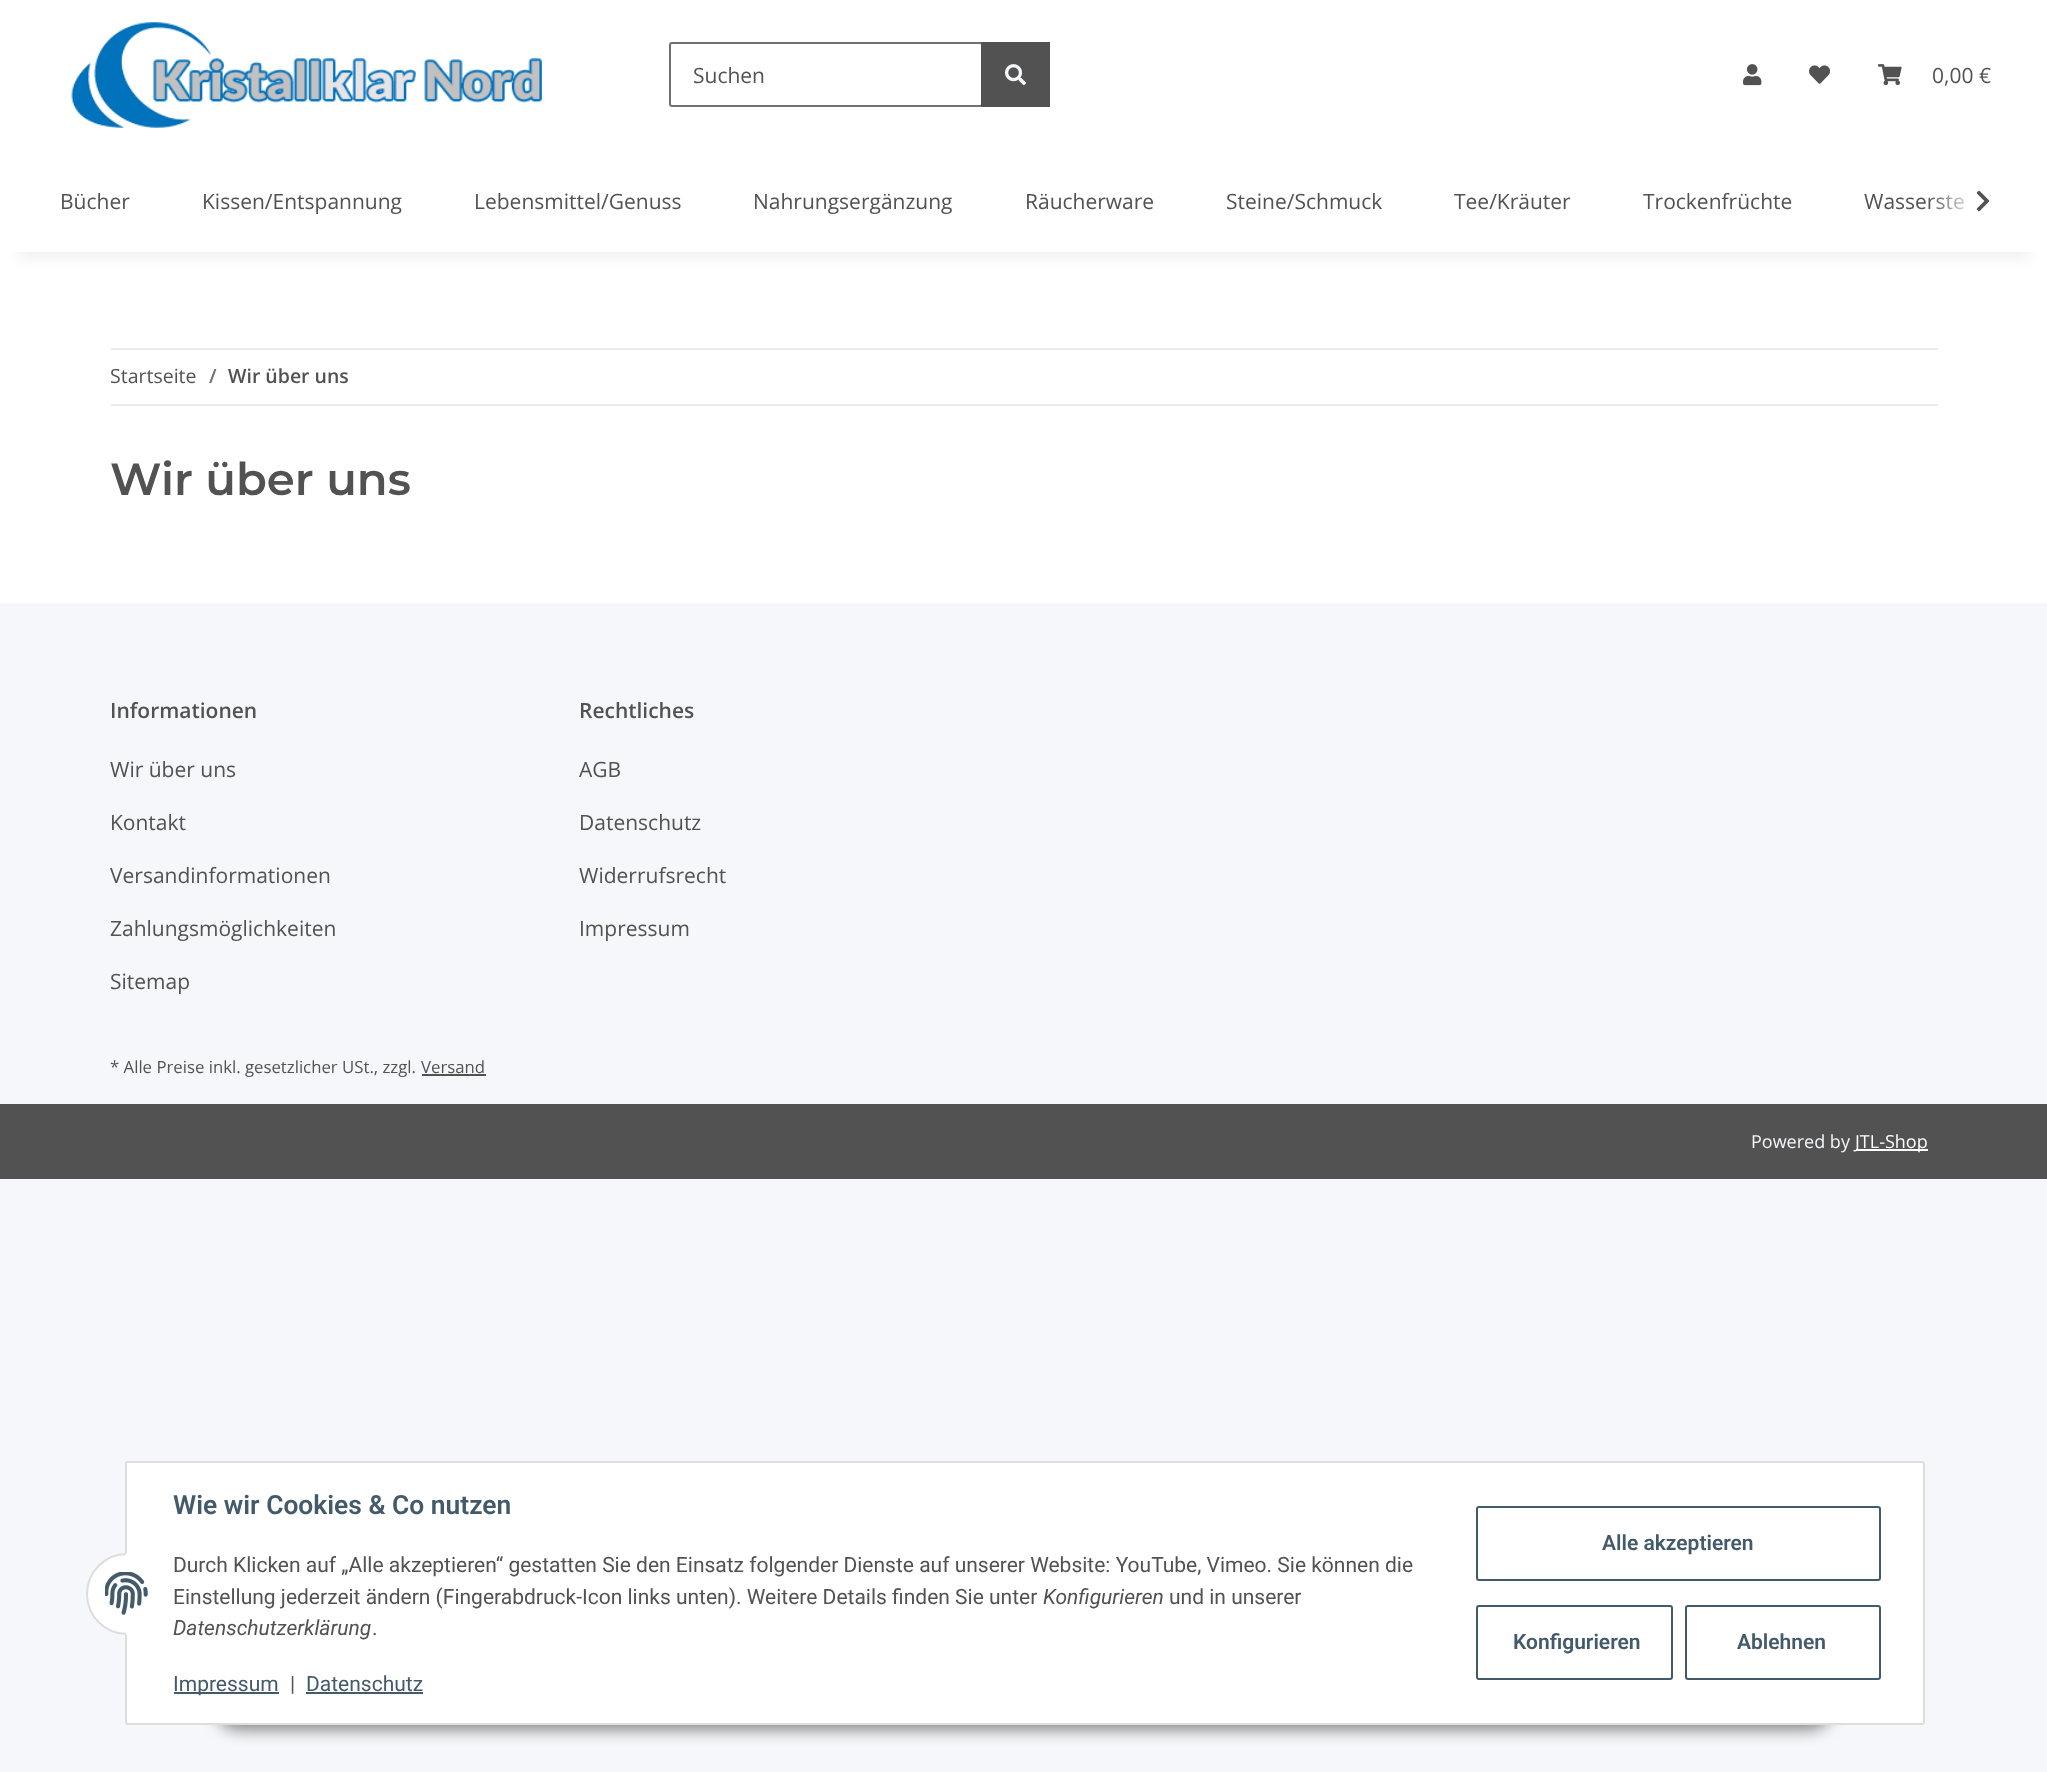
<svg xmlns="http://www.w3.org/2000/svg" width="2047" height="1772">
	<defs>
		<linearGradient id="g1" gradientUnits="userSpaceOnUse" x1="1928" y1="201" x2="2000" y2="201"><stop offset="0" stop-color="#FFFFFF" stop-opacity="0.01" /><stop offset="0.7" stop-color="#FFFFFF" /></linearGradient>
	</defs>
	<rect width="100%" height="100%" fill="#F5F7FA" />
	<rect x="0" y="252" width="2047" height="351" fill="#FFFFFF" />
	<rect x="18" y="42" width="2012" height="216" fill="#000000" fill-opacity="0.06" filter="blur(7px)" />
	<rect x="0" y="0" width="2047" height="252" fill="#FFFFFF" />
	<image x="71" y="22" width="471" height="106" href="assets/img1.png" />
	<rect x="670" y="43" width="312" height="63" rx="2" fill="none" stroke="#707070" stroke-width="2" />
	<text x="693" y="83" font-family="Open Sans" font-size="21" fill="#525252">Suchen</text>
	<rect x="981" y="42" width="69" height="65" fill="#525252" />
	<image x="1005" y="64" width="21" height="22" href="assets/img2.png" />
	<image x="1743" y="64" width="19" height="22" href="assets/img3.png" />
	<image x="1809" y="65" width="21" height="19" href="assets/img4.png" />
	<image x="1878" y="64" width="24" height="22" href="assets/img5.png" />
	<g font-family="Open Sans" font-size="21" fill="#525252">
		<text x="1932" y="83">0,00 €</text>
		<text x="1864" y="209">Wasserste</text>
	</g>
	<rect x="1929" y="195" width="36" height="15" fill="url(#g1)" />
	<image x="1976" y="190" width="14" height="22" href="assets/img6.png" />
	<g font-family="Open Sans" font-size="21" fill="#525252">
		<text x="60" y="209">Bücher</text>
		<text x="202" y="209">Kissen/Entspannung</text>
		<text x="474" y="209">Lebensmittel/Genuss</text>
		<text x="753" y="209">Nahrungsergänzung</text>
		<text x="1025" y="209">Räucherware</text>
		<text x="1226" y="209">Steine/Schmuck</text>
		<text x="1454" y="209">Tee/Kräuter</text>
		<text x="1643" y="209">Trockenfrüchte</text>
	</g>
	<rect x="111" y="348" width="1827" height="2" fill="#EBEBEB" />
	<rect x="111" y="404" width="1827" height="2" fill="#EBEBEB" />
	<text x="110" y="383" font-family="Open Sans" font-size="19.5" fill="#525252">Startseite</text>
	<text x="209" y="383" font-family="Open Sans" font-size="19.5" font-weight="600" fill="#707070">/</text>
	<text x="228" y="383" font-family="Open Sans" font-size="19.5" font-weight="600" fill="#525252">Wir über uns</text>
	<text x="110" y="495" font-family="Montserrat" font-size="45" font-weight="600" fill="#525252">Wir über uns</text>
	<text x="110" y="718" font-family="Open Sans" font-size="21" font-weight="600" fill="#525252">Informationen</text>
	<g font-family="Open Sans" font-size="21" fill="#525252">
		<text x="110" y="777">Wir über uns</text>
		<text x="110" y="830">Kontakt</text>
		<text x="110" y="883">Versandinformationen</text>
		<text x="110" y="936">Zahlungsmöglichkeiten</text>
		<text x="110" y="989">Sitemap</text>
	</g>
	<text x="579" y="718" font-family="Open Sans" font-size="21" font-weight="600" fill="#525252">Rechtliches</text>
	<g font-family="Open Sans" font-size="21" fill="#525252">
		<text x="579" y="777">AGB</text>
		<text x="579" y="830">Datenschutz</text>
		<text x="579" y="883">Widerrufsrecht</text>
		<text x="579" y="936">Impressum</text>
	</g>
	<g font-family="Open Sans" font-size="16.75" fill="#525252">
		<text x="110" y="1073">* Alle Preise inkl. gesetzlicher USt., zzgl.</text>
		<text x="421" y="1073">Versand</text>
	</g>
	<rect x="422" y="1074" width="64" height="2" fill="#525252" />
	<rect x="0" y="1104" width="2047" height="75" fill="#525252" />
	<text x="1751" y="1148" font-family="Open Sans" font-size="18" fill="#F5F7FA">Powered by</text>
	<rect x="1856" y="1149" width="72" height="2" fill="#FFFFFF" />
	<text x="1855" y="1148" font-family="Open Sans" font-size="18" fill="#FFFFFF">JTL-Shop</text>
	<rect x="215" y="1682" width="1618" height="48" rx="24" fill="#000000" fill-opacity="0.45" filter="blur(7.5px)" />
	<rect x="126" y="1462" width="1798" height="262" rx="2" fill="#FFFFFF" stroke="#DDDDDD" stroke-width="2" />
	<circle cx="127" cy="1594" r="40" fill="#FFFFFF" stroke="#DDDDDD" stroke-width="2" />
	<rect x="126" y="1553" width="42" height="82" fill="#FFFFFF" />
	<image x="105" y="1572" width="43" height="43" href="assets/img7.png" />
	<text x="173" y="1514" font-family="Roboto" font-size="26.4" font-weight="600" fill="#435A6B">Wie wir Cookies &amp; Co nutzen</text>
	<g font-family="Roboto" font-size="21" fill="#525252">
		<text x="173" y="1572">Durch Klicken auf „Alle akzeptieren“ gestatten Sie den Einsatz folgender Dienste auf unserer Website: YouTube, Vimeo. Sie können die</text>
		<text x="173" y="1604">Einstellung jederzeit ändern (Fingerabdruck-Icon links unten). Weitere Details finden Sie unter</text>
	</g>
	<text x="1043" y="1604" font-family="Roboto" font-size="21" font-style="italic" fill="#525252">Konfigurieren</text>
	<text x="1169" y="1604" font-family="Roboto" font-size="21" fill="#525252">und in unserer</text>
	<text x="173" y="1635" font-family="Roboto" font-size="21" font-style="italic" fill="#525252">Datenschutzerklärung</text>
	<text x="372" y="1635" font-family="Roboto" font-size="21" fill="#525252">.</text>
	<rect x="174" y="1692" width="105" height="2" fill="#435A6B" />
	<text x="173" y="1691" font-family="Roboto" font-size="21" fill="#435A6B">Impressum</text>
	<text x="290" y="1691" font-family="Roboto" font-size="21" fill="#525252">|</text>
	<text x="306" y="1691" font-family="Roboto" font-size="21" fill="#435A6B">Datenschutz</text>
	<rect x="306" y="1692" width="117" height="2" fill="#435A6B" />
	<rect x="1477" y="1507" width="403" height="73" rx="2" fill="none" stroke="#435A6B" stroke-width="2" />
	<text x="1602" y="1550" font-family="Roboto" font-size="21" font-weight="600" fill="#435A6B">Alle akzeptieren</text>
	<rect x="1477" y="1606" width="195" height="73" rx="2" fill="none" stroke="#435A6B" stroke-width="2" />
	<text x="1513" y="1649" font-family="Roboto" font-size="21" font-weight="600" fill="#435A6B">Konfigurieren</text>
	<rect x="1686" y="1606" width="194" height="73" rx="2" fill="none" stroke="#435A6B" stroke-width="2" />
	<text x="1737" y="1649" font-family="Roboto" font-size="21" font-weight="600" fill="#435A6B">Ablehnen</text>
</svg>
